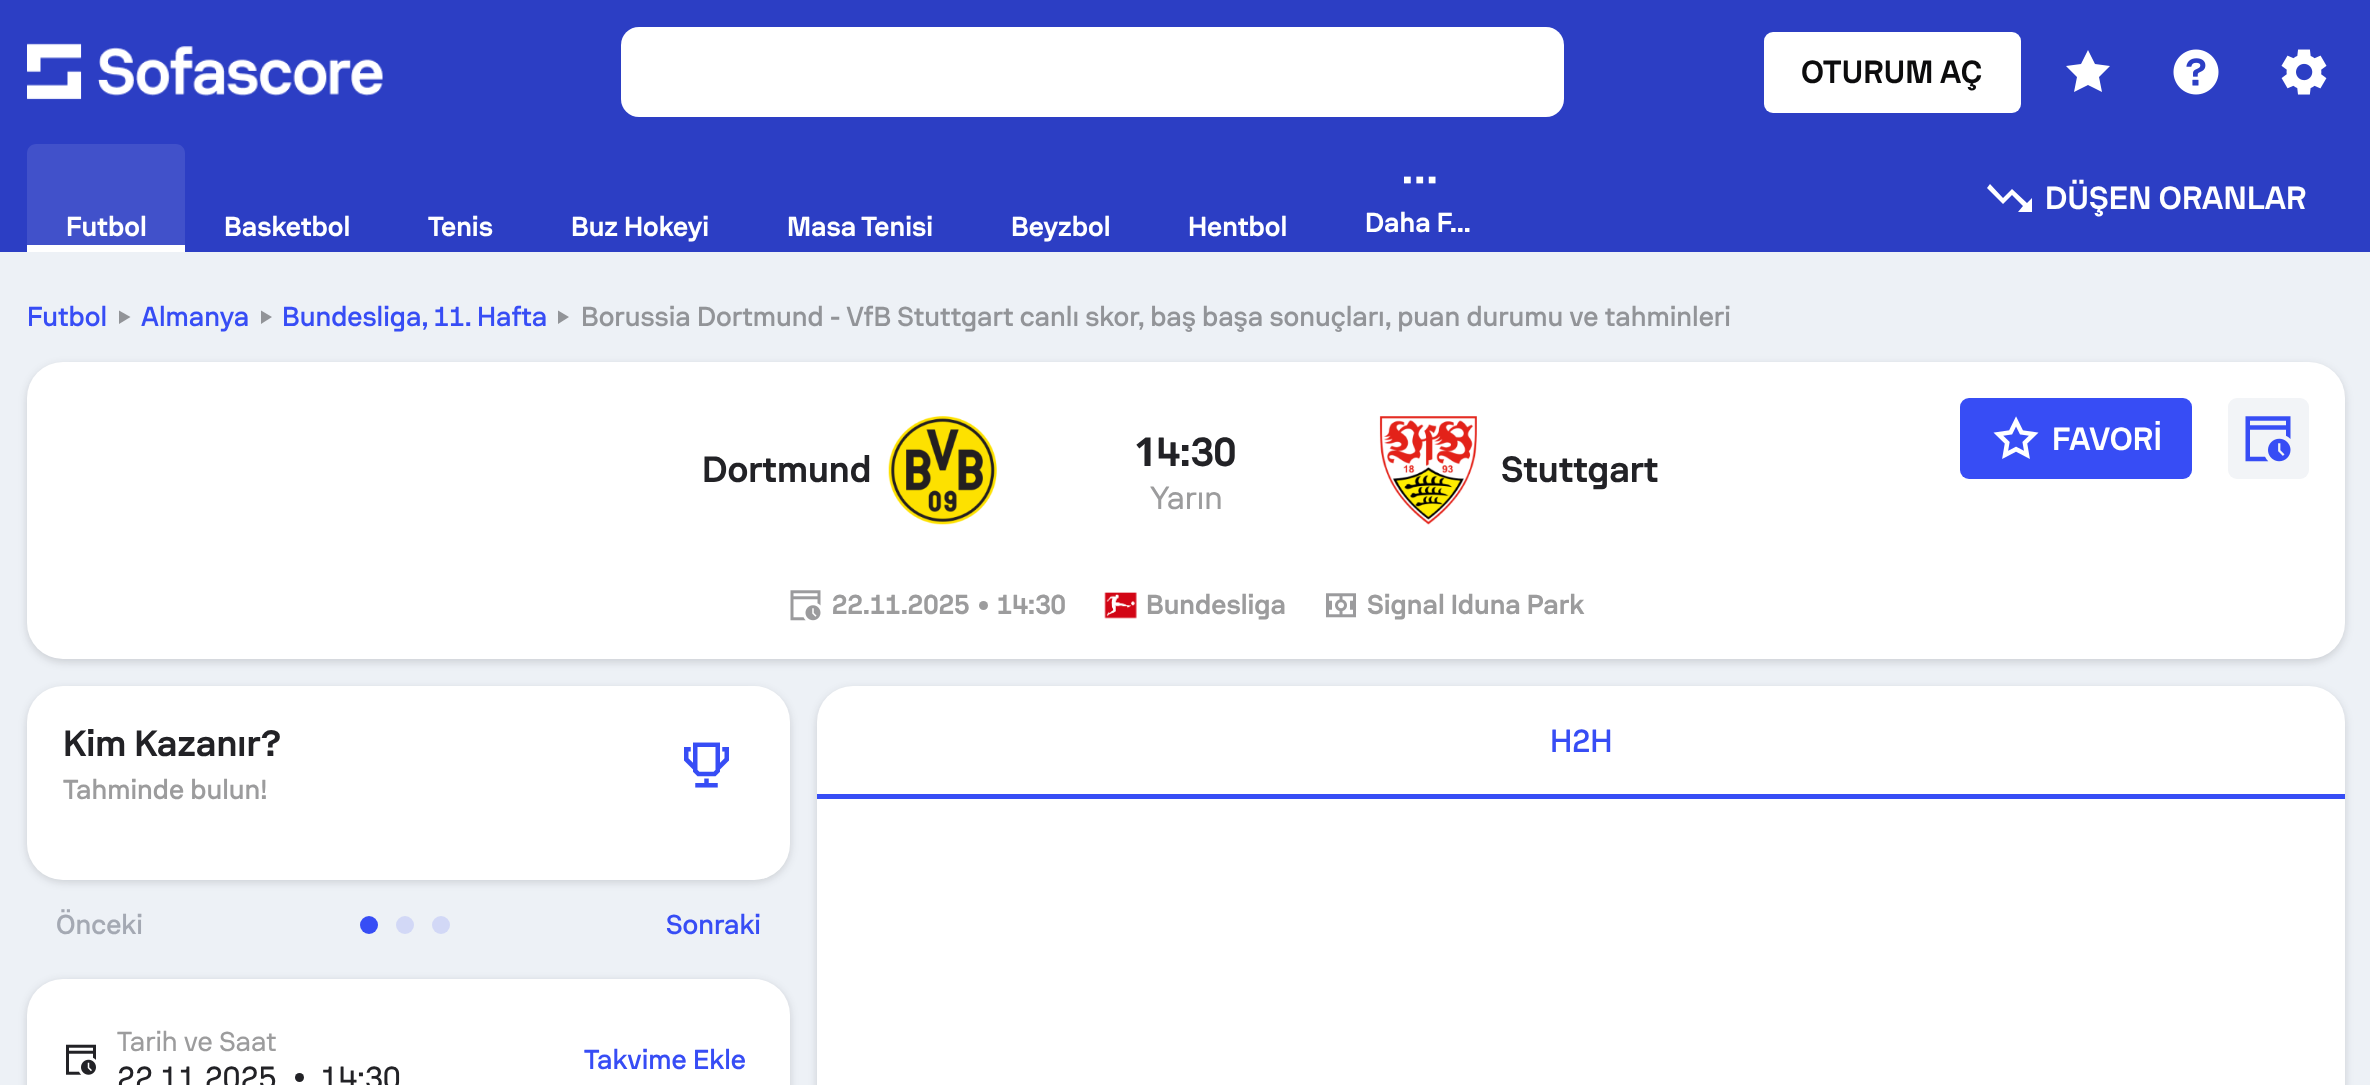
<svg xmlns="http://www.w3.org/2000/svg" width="2370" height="1085">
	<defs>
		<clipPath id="clip1"><rect x="2052" y="421" width="110" height="36" /></clipPath>
	</defs>
	<rect width="100%" height="100%" fill="#EDF1F6" />
	<rect x="0" y="0" width="2370" height="252" fill="#2C3EC4" />
	<image x="27" y="43" width="356" height="57" href="assets/img1.png" />
	<rect x="621" y="27" width="943" height="90" rx="18" fill="#FFFFFF" />
	<rect x="1764" y="32" width="257" height="81" rx="9" fill="#FFFFFF" />
	<text x="1801" y="83" font-family="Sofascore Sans" font-size="31.5" font-weight="700" letter-spacing="0.2" fill="#0C0C0D">OTURUM AÇ</text>
	<path d="M2088 50L2095 64L2110 66L2099 77L2102 92L2088 85L2074 92L2077 77L2066 66L2081 64Z" fill="#FFFFFF" fill-rule="evenodd" />
	<image x="2173" y="49" width="46" height="46" href="assets/img2.png" />
	<image x="2281" y="49" width="46" height="46" href="assets/img3.png" />
	<path d="M2018 212L2023 206L2012 195L2003 204L1987 188L1990 184L2003 198L2012 189L2027 203L2032 198V212Z" fill="#FFFFFF" fill-rule="evenodd" />
	<text x="2045" y="209" font-family="Sofascore Sans" font-size="31.5" font-weight="700" letter-spacing="0.2" fill="#FFFFFF">DÜŞEN ORANLAR</text>
	<path d="M36 144H176C181 144 185 148 185 153V252H27V153C27 148 31 144 36 144Z" fill="#4151CA" />
	<rect x="27" y="245" width="158" height="7" fill="#FFFFFF" />
	<g font-family="Sofascore Sans" font-size="27" font-weight="700" fill="#FFFFFF">
		<text x="66" y="236">Futbol</text>
		<text x="224" y="236">Basketbol</text>
		<text x="428" y="236">Tenis</text>
		<text x="571" y="236">Buz Hokeyi</text>
		<text x="787" y="236">Masa Tenisi</text>
		<text x="1011" y="236">Beyzbol</text>
		<text x="1188" y="236">Hentbol</text>
	</g>
	<image x="1404" y="176" width="32" height="8" href="assets/img4.png" />
	<text x="1365" y="232" font-family="Sofascore Sans" font-size="27" font-weight="700" fill="#FFFFFF">Daha F…</text>
	<text x="27" y="326" font-family="Sofascore Sans" font-size="27" font-weight="500" fill="#374DF5">Futbol</text>
	<path d="M119 324V310.5L130.5 317Z" fill="#929498" />
	<text x="141" y="326" font-family="Sofascore Sans" font-size="27" font-weight="500" fill="#374DF5">Almanya</text>
	<path d="M261 324V310.5L272 317Z" fill="#929498" />
	<text x="282" y="326" font-family="Sofascore Sans" font-size="27" font-weight="500" fill="#374DF5">Bundesliga, 11. Hafta</text>
	<path d="M558 324V310.5L569 317Z" fill="#929498" />
	<text x="581" y="326" font-family="Sofascore Sans" font-size="27" font-weight="500" fill="#929498">Borussia Dortmund - VfB Stuttgart canlı skor, baş başa sonuçları, puan durumu ve tahminleri</text>
	<rect x="27" y="365" width="2318" height="297" rx="36" fill="#222226" fill-opacity="0.16" filter="blur(4.5px)" />
	<rect x="27" y="362" width="2318" height="297" rx="36" fill="#FFFFFF" />
	<text x="702" y="482" font-family="Sofascore Sans" font-size="36" font-weight="700" fill="#222226">Dortmund</text>
	<image x="888" y="416" width="109" height="109" href="assets/img5.png" />
	<text x="1134" y="466" font-family="Noto Sans" font-size="40" font-weight="700" fill="#222226">1</text>
	<text x="1157" y="466" font-family="Sofascore Sans" font-size="40" font-weight="700" fill="#222226">4:30</text>
	<text x="1150" y="509" font-family="Sofascore Sans" font-size="31.5" fill="#9C9C9D">Yarın</text>
	<image x="1379" y="416" width="98" height="109" href="assets/img6.png" />
	<text x="1501" y="482" font-family="Sofascore Sans" font-size="36" font-weight="700" fill="#222226">Stuttgart</text>
	<rect x="1960" y="398" width="232" height="81" rx="9" fill="#374DF5" />
	<image x="1993" y="416" width="46" height="43" href="assets/img7.png" />
	<g clip-path="url(#clip1)">
		<text x="2052" y="450" font-family="Sofascore Sans" font-size="31.5" font-weight="700" letter-spacing="0.2" fill="#FFFFFF">FAVORİ</text>
	</g>
	<rect x="2228" y="398" width="81" height="81" rx="9" fill="#F2F4F7" />
	<image x="2245" y="416" width="46" height="46" href="assets/img8.png" />
	<image x="790" y="590" width="31" height="31" href="assets/img9.png" />
	<text x="832" y="614" font-family="Sofascore Sans" font-size="27" font-weight="700" fill="#9C9C9D">22.11.2025</text>
	<circle cx="983.5" cy="605.5" r="4.5" fill="#9C9C9D" />
	<text x="997" y="614" font-family="Sofascore Sans" font-size="27" font-weight="700" fill="#9C9C9D">14:30</text>
	<image x="1104" y="592" width="33" height="27" href="assets/img10.png" />
	<text x="1146" y="614" font-family="Sofascore Sans" font-size="27" font-weight="700" fill="#9C9C9D">Bundesliga</text>
	<image x="1326" y="593" width="30" height="25" href="assets/img11.png" />
	<text x="1367" y="614" font-family="Sofascore Sans" font-size="27" font-weight="700" fill="#9C9C9D">Signal Iduna Park</text>
	<rect x="27" y="689" width="763" height="193" rx="36" fill="#222226" fill-opacity="0.16" filter="blur(4.5px)" />
	<rect x="27" y="686" width="763" height="194" rx="36" fill="#FFFFFF" />
	<text x="63" y="756" font-family="Sofascore Sans" font-size="36" font-weight="700" fill="#222226">Kim Kazanır?</text>
	<text x="63" y="799" font-family="Sofascore Sans" font-size="27" font-weight="500" fill="#9C9C9D">Tahminde bulun!</text>
	<image x="684" y="742" width="45" height="46" href="assets/img12.png" />
	<text x="56" y="934" font-family="Sofascore Sans" font-size="27" font-weight="500" fill="#A4A9B3">Önceki</text>
	<circle cx="369" cy="925" r="9" fill="#374DF5" />
	<circle cx="405" cy="925" r="9" fill="#D2D8F6" />
	<circle cx="441" cy="925" r="9" fill="#D2D8F6" />
	<text x="666" y="934" font-family="Sofascore Sans" font-size="27" font-weight="500" fill="#374DF5">Sonraki</text>
	<rect x="27" y="981" width="763" height="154" rx="36" fill="#222226" fill-opacity="0.16" filter="blur(4.5px)" />
	<rect x="27" y="979" width="763" height="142" rx="36" fill="#FFFFFF" />
	<image x="66" y="1044" width="30" height="31" href="assets/img13.png" />
	<text x="117" y="1051" font-family="Sofascore Sans" font-size="27" fill="#9C9C9D">Tarih ve Saat</text>
	<text x="117" y="1089" font-family="Sofascore Sans" font-size="31.5" fill="#222226">22.11.2025</text>
	<circle cx="299.5" cy="1077.5" r="4.5" fill="#222226" />
	<text x="321" y="1089" font-family="Sofascore Sans" font-size="31.5" fill="#222226">14:30</text>
	<text x="584" y="1069" font-family="Sofascore Sans" font-size="27" font-weight="500" fill="#374DF5">Takvime Ekle</text>
	<rect x="817" y="689" width="1528" height="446" rx="36" fill="#222226" fill-opacity="0.16" filter="blur(4.5px)" />
	<rect x="817" y="686" width="1528" height="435" rx="36" fill="#FFFFFF" />
	<rect x="817" y="794" width="1528" height="5" fill="#374DF5" />
	<text x="1550" y="752" font-family="Sofascore Sans" font-size="31.5" font-weight="500" fill="#374DF5">H2H</text>
</svg>
